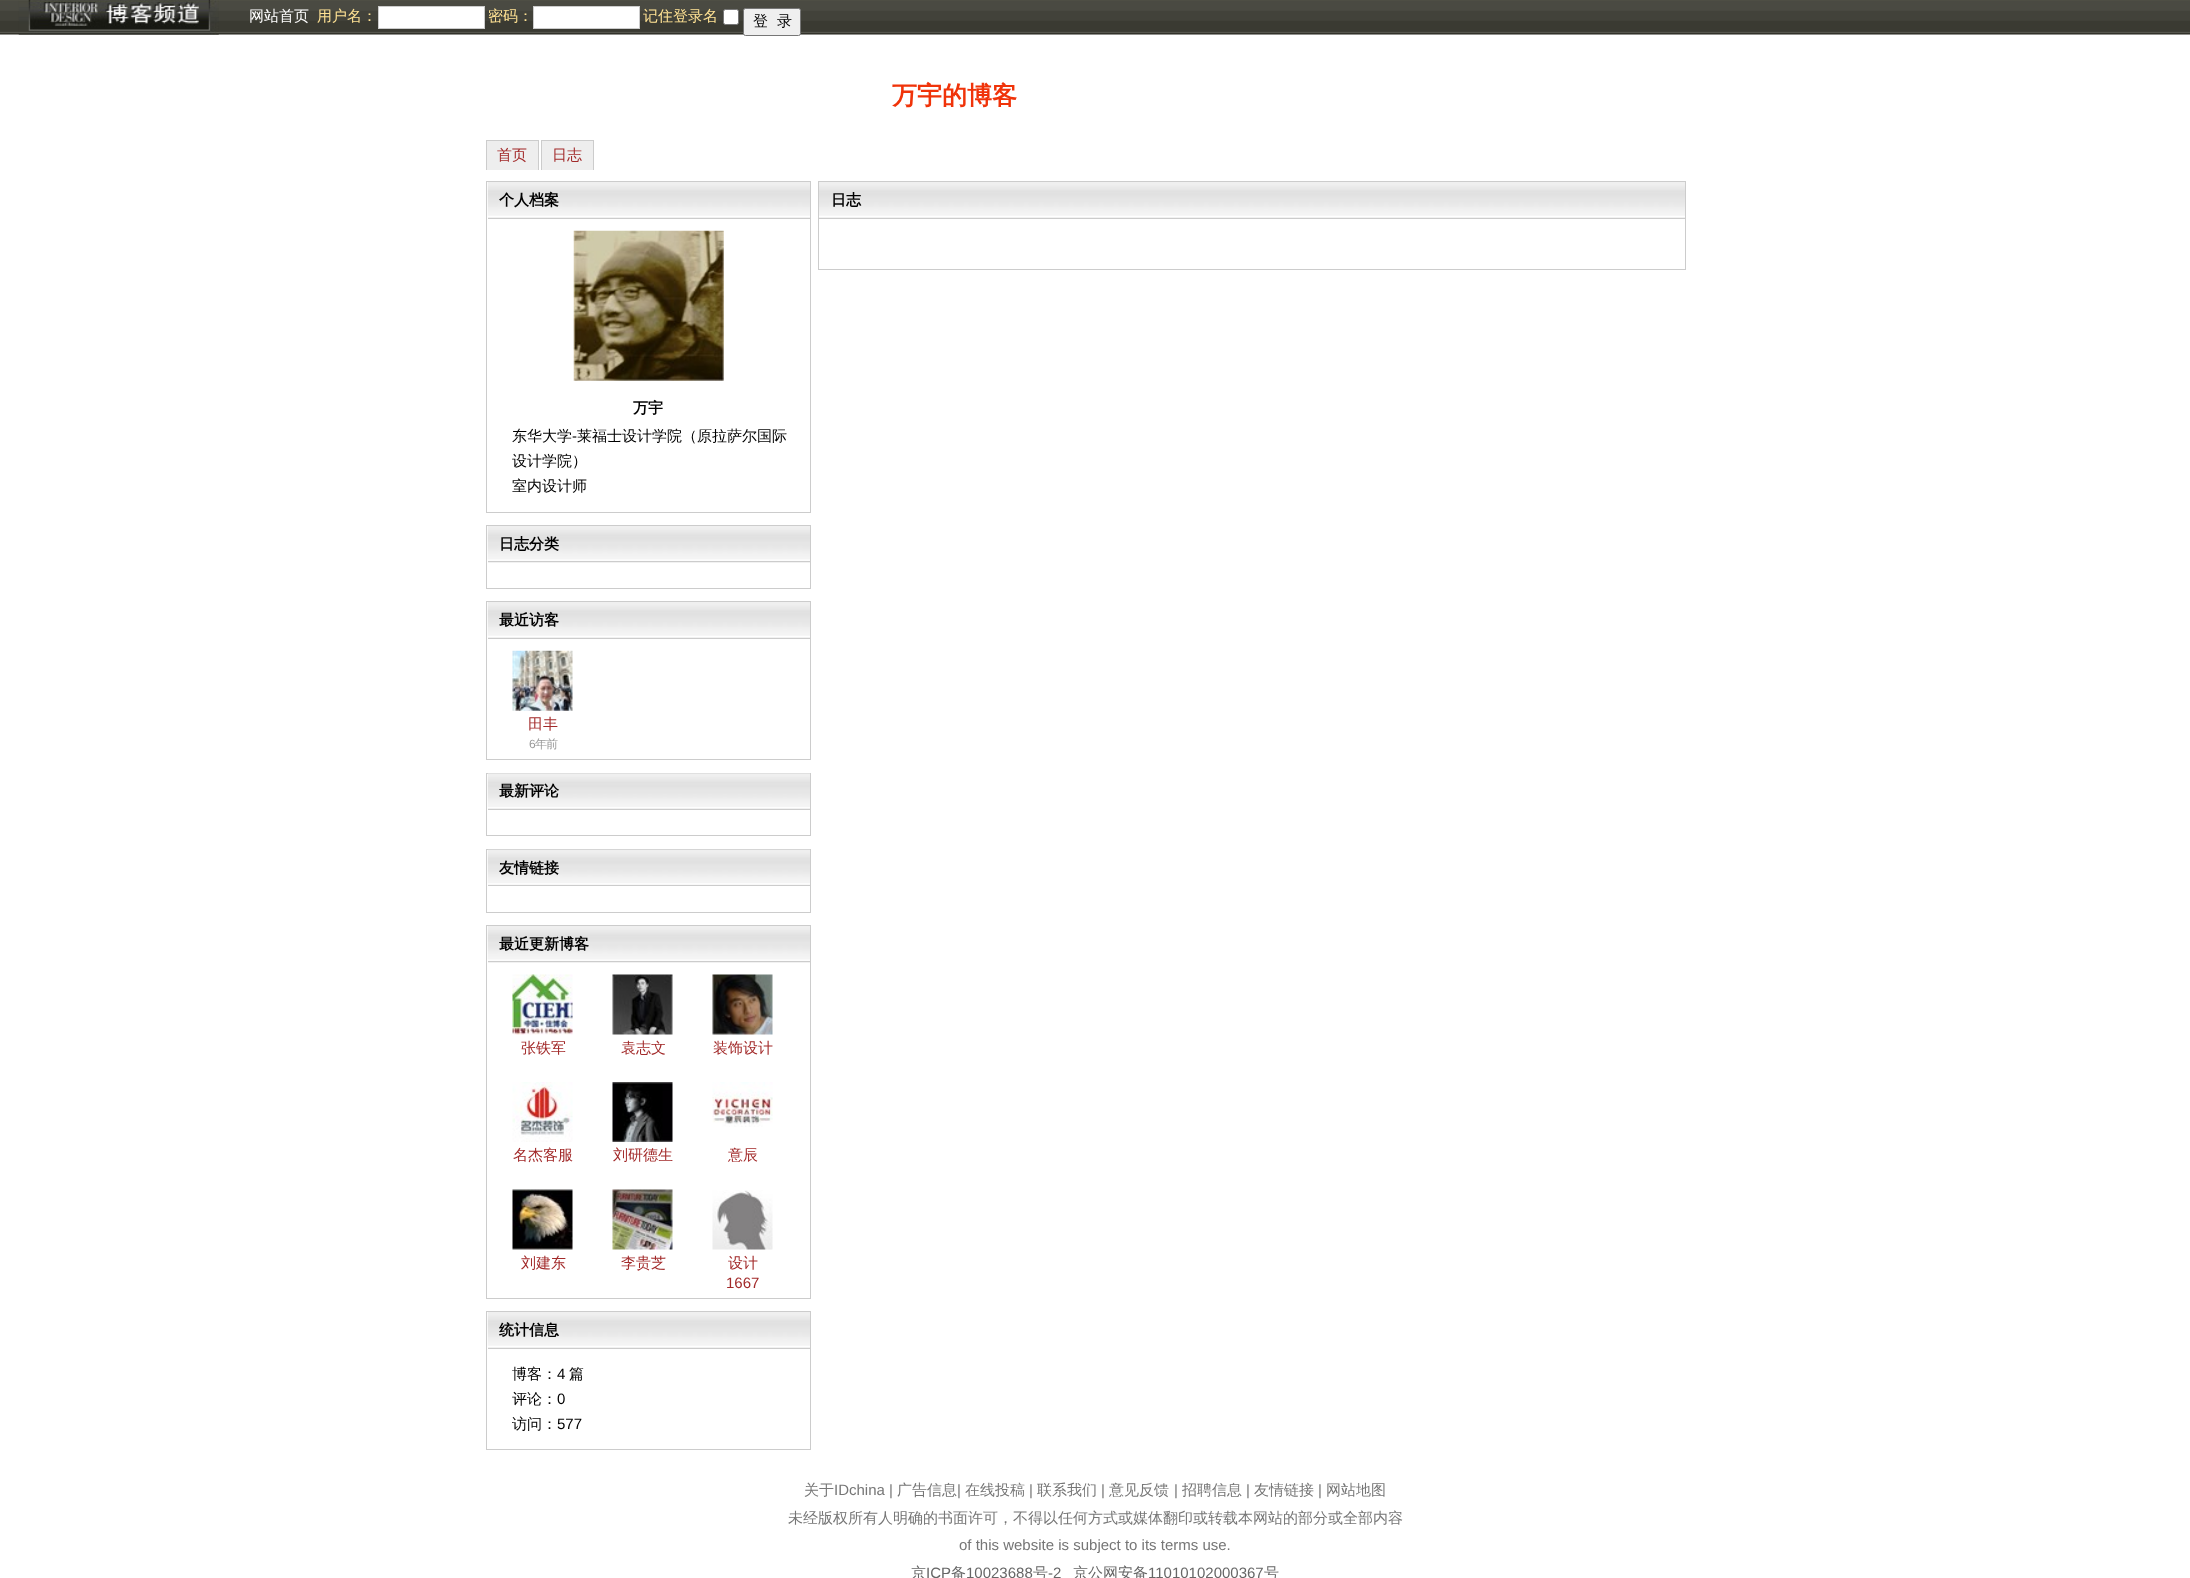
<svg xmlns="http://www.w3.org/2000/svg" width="2190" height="1578">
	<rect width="100%" height="100%" fill="#FFFFFF" />
	<image x="0" y="0" width="2190" height="35" href="assets/img1.png" />
	<image x="18" y="0" width="201" height="35" href="assets/img2.png" />
	<text x="249" y="21" font-family="WenQuanYi Zen Hei" font-size="15" font-weight="500" fill="#FFFFFF">网站首页</text>
	<text x="317" y="21" font-family="WenQuanYi Zen Hei" font-size="15" font-weight="500" fill="#FFE294">用户名：</text>
	<rect x="378.5" y="6.5" width="106" height="22" fill="#FFFFFF" stroke="#CCCCCC" />
	<text x="488" y="21" font-family="WenQuanYi Zen Hei" font-size="15" font-weight="500" fill="#FFE294">密码：</text>
	<rect x="533.5" y="6.5" width="106" height="22" fill="#FFFFFF" stroke="#CCCCCC" />
	<text x="643" y="21" font-family="WenQuanYi Zen Hei" font-size="15" font-weight="500" fill="#FFE294">记住登录名</text>
	<rect x="723.5" y="9.5" width="15" height="15" rx="2" fill="#FFFFFF" stroke="#767676" />
	<rect x="743.5" y="8.5" width="57" height="27" rx="2" fill="#EFEFEF" stroke="#767676" />
	<text x="753" y="26" font-family="WenQuanYi Zen Hei" font-size="15" font-weight="500" fill="#000000" xml:space="preserve">登  录</text>
	<text x="892" y="104" font-family="WenQuanYi Zen Hei" font-size="25" font-weight="700" fill="#F03309">万宇的博客</text>
	<rect x="487" y="141" width="51" height="29" fill="#EEEEEE" />
	<rect x="486" y="140" width="53" height="1" fill="#CCCCCC" />
	<rect x="538" y="140" width="1" height="30" fill="#CCCCCC" />
	<rect x="486" y="140" width="1" height="30" fill="#CCCCCC" />
	<text x="497" y="160" font-family="WenQuanYi Zen Hei" font-size="15" font-weight="500" fill="#A22A2A">首页</text>
	<rect x="542" y="141" width="51" height="29" fill="#EEEEEE" />
	<rect x="541" y="140" width="53" height="1" fill="#CCCCCC" />
	<rect x="593" y="140" width="1" height="30" fill="#CCCCCC" />
	<rect x="541" y="140" width="1" height="30" fill="#CCCCCC" />
	<text x="552" y="160" font-family="WenQuanYi Zen Hei" font-size="15" font-weight="500" fill="#A22A2A">日志</text>
	<rect x="486.5" y="181.5" width="324" height="331" fill="none" stroke="#CCCCCC" />
	<rect x="488" y="217" width="322" height="1" fill="#F1F1F1" />
	<image x="487" y="182" width="323" height="35" href="assets/img3.png" />
	<rect x="488" y="218" width="322" height="1" fill="#CCCCCC" />
	<text x="499" y="205" font-family="WenQuanYi Zen Hei" font-size="15" font-weight="700" fill="#000000">个人档案</text>
	<image x="573" y="230" width="151" height="151" href="assets/img4.png" />
	<text x="633" y="413" font-family="WenQuanYi Zen Hei" font-size="15" font-weight="700" fill="#000000">万宇</text>
	<text x="512" y="441" font-family="WenQuanYi Zen Hei" font-size="15" font-weight="500" fill="#000000">东华大学</text>
	<text x="572" y="441" font-family="Liberation Sans" font-size="15" fill="#000000">-</text>
	<g font-family="WenQuanYi Zen Hei" font-size="15" font-weight="500" fill="#000000">
		<text x="577" y="441">莱福士设计学院（原拉萨尔国际</text>
		<text x="512" y="466">设计学院）</text>
		<text x="512" y="491">室内设计师</text>
	</g>
	<rect x="486.5" y="525.5" width="324" height="63" fill="none" stroke="#CCCCCC" />
	<rect x="488" y="560" width="322" height="3" fill="#F1F1F1" />
	<image x="487" y="526" width="323" height="35" href="assets/img5.png" />
	<rect x="488" y="561" width="322" height="1" fill="#CCCCCC" />
	<text x="499" y="549" font-family="WenQuanYi Zen Hei" font-size="15" font-weight="700" fill="#000000">日志分类</text>
	<rect x="486.5" y="601.5" width="324" height="158" fill="none" stroke="#CCCCCC" />
	<rect x="488" y="637" width="322" height="1" fill="#F1F1F1" />
	<image x="487" y="602" width="323" height="35" href="assets/img3.png" />
	<rect x="488" y="638" width="322" height="1" fill="#CCCCCC" />
	<text x="499" y="625" font-family="WenQuanYi Zen Hei" font-size="15" font-weight="700" fill="#000000">最近访客</text>
	<image x="512" y="650" width="61" height="61" href="assets/img6.png" />
	<text x="528" y="729" font-family="WenQuanYi Zen Hei" font-size="15" font-weight="500" fill="#A22A2A">田丰</text>
	<text x="529" y="748" font-family="Liberation Sans" font-size="12" letter-spacing="-1" fill="#999999">6</text>
	<text x="535" y="748" font-family="WenQuanYi Zen Hei" font-size="12" font-weight="500" letter-spacing="-1" fill="#999999">年前</text>
	<rect x="486.5" y="773.5" width="324" height="62" fill="none" stroke="#CCCCCC" />
	<rect x="488" y="808" width="322" height="1" fill="#F1F1F1" />
	<image x="487" y="773" width="323" height="35" href="assets/img7.png" />
	<rect x="488" y="809" width="322" height="1" fill="#CCCCCC" />
	<text x="499" y="796" font-family="WenQuanYi Zen Hei" font-size="15" font-weight="700" fill="#000000">最新评论</text>
	<rect x="486.5" y="849.5" width="324" height="63" fill="none" stroke="#CCCCCC" />
	<rect x="488" y="884" width="322" height="1" fill="#F1F1F1" />
	<image x="487" y="849" width="323" height="36" href="assets/img8.png" />
	<rect x="488" y="885" width="322" height="1" fill="#CCCCCC" />
	<text x="499" y="873" font-family="WenQuanYi Zen Hei" font-size="15" font-weight="700" fill="#000000">友情链接</text>
	<rect x="486.5" y="925.5" width="324" height="373" fill="none" stroke="#CCCCCC" />
	<rect x="488" y="960" width="322" height="3" fill="#F1F1F1" />
	<image x="487" y="926" width="323" height="35" href="assets/img9.png" />
	<rect x="488" y="961" width="322" height="1" fill="#CCCCCC" />
	<text x="499" y="949" font-family="WenQuanYi Zen Hei" font-size="15" font-weight="700" fill="#000000">最近更新博客</text>
	<image x="512" y="974" width="61" height="61" href="assets/img10.png" />
	<text x="521" y="1053" font-family="WenQuanYi Zen Hei" font-size="15" font-weight="500" fill="#A22A2A">张铁军</text>
	<image x="612" y="974" width="61" height="61" href="assets/img11.png" />
	<text x="621" y="1053" font-family="WenQuanYi Zen Hei" font-size="15" font-weight="500" fill="#A22A2A">袁志文</text>
	<image x="712" y="974" width="61" height="61" href="assets/img12.png" />
	<text x="713" y="1053" font-family="WenQuanYi Zen Hei" font-size="15" font-weight="500" fill="#A22A2A">装饰设计</text>
	<image x="512" y="1082" width="61" height="60" href="assets/img13.png" />
	<text x="513" y="1160" font-family="WenQuanYi Zen Hei" font-size="15" font-weight="500" fill="#A22A2A">名杰客服</text>
	<image x="612" y="1082" width="61" height="60" href="assets/img14.png" />
	<text x="613" y="1160" font-family="WenQuanYi Zen Hei" font-size="15" font-weight="500" fill="#A22A2A">刘研德生</text>
	<image x="712" y="1082" width="61" height="45" href="assets/img15.png" />
	<text x="728" y="1160" font-family="WenQuanYi Zen Hei" font-size="15" font-weight="500" fill="#A22A2A">意辰</text>
	<image x="512" y="1189" width="61" height="61" href="assets/img16.png" />
	<text x="521" y="1268" font-family="WenQuanYi Zen Hei" font-size="15" font-weight="500" fill="#A22A2A">刘建东</text>
	<image x="612" y="1189" width="61" height="61" href="assets/img17.png" />
	<text x="621" y="1268" font-family="WenQuanYi Zen Hei" font-size="15" font-weight="500" fill="#A22A2A">李贵芝</text>
	<image x="712" y="1190" width="61" height="60" href="assets/img18.png" />
	<text x="728" y="1268" font-family="WenQuanYi Zen Hei" font-size="15" font-weight="500" fill="#A22A2A">设计</text>
	<text x="726" y="1288" font-family="Liberation Sans" font-size="15" fill="#A22A2A">1667</text>
	<rect x="486.5" y="1311.5" width="324" height="138" fill="none" stroke="#CCCCCC" />
	<rect x="488" y="1347" width="322" height="1" fill="#F1F1F1" />
	<image x="487" y="1312" width="323" height="35" href="assets/img3.png" />
	<rect x="488" y="1348" width="322" height="1" fill="#CCCCCC" />
	<text x="499" y="1335" font-family="WenQuanYi Zen Hei" font-size="15" font-weight="700" fill="#000000">统计信息</text>
	<text x="512" y="1379" font-family="WenQuanYi Zen Hei" font-size="15" font-weight="500" fill="#000000">博客：</text>
	<text x="557" y="1379" font-family="Liberation Sans" font-size="15" fill="#000000">4</text>
	<g font-family="WenQuanYi Zen Hei" font-size="15" font-weight="500" fill="#000000">
		<text x="569" y="1379">篇</text>
		<text x="512" y="1404">评论：</text>
	</g>
	<text x="557" y="1404" font-family="Liberation Sans" font-size="15" fill="#000000">0</text>
	<text x="512" y="1429" font-family="WenQuanYi Zen Hei" font-size="15" font-weight="500" fill="#000000">访问：</text>
	<text x="557" y="1429" font-family="Liberation Sans" font-size="15" fill="#000000">577</text>
	<rect x="818.5" y="181.5" width="867" height="88" fill="none" stroke="#CCCCCC" />
	<rect x="819" y="217" width="866" height="1" fill="#F1F1F1" />
	<image x="819" y="182" width="866" height="35" href="assets/img19.png" />
	<rect x="819" y="218" width="866" height="1" fill="#CCCCCC" />
	<text x="831" y="205" font-family="WenQuanYi Zen Hei" font-size="15" font-weight="700" fill="#000000">日志</text>
	<text x="804" y="1495" font-family="WenQuanYi Zen Hei" font-size="15" font-weight="500" fill="#767676">关于</text>
	<text x="834" y="1495" font-family="Liberation Sans" font-size="15" fill="#767676">IDchina |</text>
	<text x="897" y="1495" font-family="WenQuanYi Zen Hei" font-size="15" font-weight="500" fill="#767676">广告信息</text>
	<text x="957" y="1495" font-family="Liberation Sans" font-size="15" fill="#767676">|</text>
	<text x="965" y="1495" font-family="WenQuanYi Zen Hei" font-size="15" font-weight="500" fill="#767676">在线投稿</text>
	<text x="1029" y="1495" font-family="Liberation Sans" font-size="15" fill="#767676">|</text>
	<text x="1037" y="1495" font-family="WenQuanYi Zen Hei" font-size="15" font-weight="500" fill="#767676">联系我们</text>
	<text x="1101" y="1495" font-family="Liberation Sans" font-size="15" fill="#767676">|</text>
	<text x="1109" y="1495" font-family="WenQuanYi Zen Hei" font-size="15" font-weight="500" fill="#767676">意见反馈</text>
	<text x="1174" y="1495" font-family="Liberation Sans" font-size="15" fill="#767676">|</text>
	<text x="1182" y="1495" font-family="WenQuanYi Zen Hei" font-size="15" font-weight="500" fill="#767676">招聘信息</text>
	<text x="1246" y="1495" font-family="Liberation Sans" font-size="15" fill="#767676">|</text>
	<text x="1254" y="1495" font-family="WenQuanYi Zen Hei" font-size="15" font-weight="500" fill="#767676">友情链接</text>
	<text x="1318" y="1495" font-family="Liberation Sans" font-size="15" fill="#767676">|</text>
	<g font-family="WenQuanYi Zen Hei" font-size="15" font-weight="500" fill="#767676">
		<text x="1326" y="1495">网站地图</text>
		<text x="788" y="1523">未经版权所有人明确的书面许可，不得以任何方式或媒体翻印或转载本网站的部分或全部内容</text>
	</g>
	<text x="959" y="1550" font-family="Liberation Sans" font-size="15" fill="#767676">of this website is subject to its terms use.</text>
	<text x="911" y="1578" font-family="WenQuanYi Zen Hei" font-size="15" font-weight="500" fill="#666666">京</text>
	<text x="926" y="1578" font-family="Liberation Sans" font-size="15" fill="#666666">ICP</text>
	<text x="951" y="1578" font-family="WenQuanYi Zen Hei" font-size="15" font-weight="500" fill="#666666">备</text>
	<text x="966" y="1578" font-family="Liberation Sans" font-size="15" fill="#666666">10023688</text>
	<text x="1033" y="1578" font-family="WenQuanYi Zen Hei" font-size="15" font-weight="500" fill="#666666">号</text>
	<text x="1048" y="1578" font-family="Liberation Sans" font-size="15" fill="#666666">-2</text>
	<text x="1073" y="1578" font-family="WenQuanYi Zen Hei" font-size="15" font-weight="500" fill="#666666">京公网安备</text>
	<text x="1148" y="1578" font-family="Liberation Sans" font-size="15" fill="#666666">11010102000367</text>
	<text x="1264" y="1578" font-family="WenQuanYi Zen Hei" font-size="15" font-weight="500" fill="#666666">号</text>
</svg>
